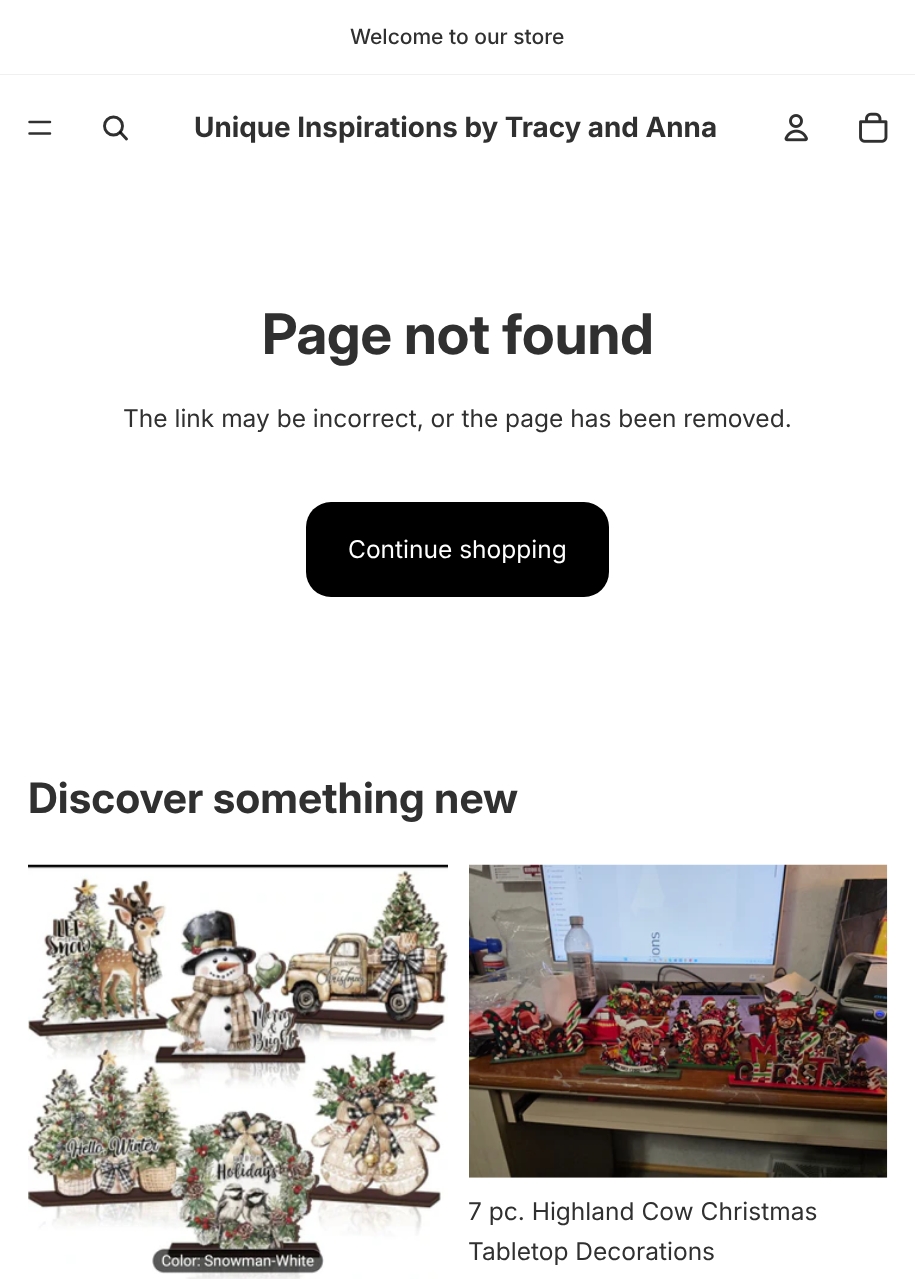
<svg xmlns="http://www.w3.org/2000/svg" width="915" height="1279">
	<rect width="100%" height="100%" fill="#FFFFFF" />
	<rect x="0" y="74" width="915" height="1" fill="#F0F0F0" />
	<text x="350" y="44" font-family="Inter" font-size="21" font-weight="500" fill="#303030">Welcome to our store</text>
	<path d="M29.5 122H50M29.5 133.5H50" fill="none" stroke="#303030" stroke-width="2.5" stroke-linecap="round" />
	<circle cx="113.5" cy="126" r="9" fill="none" stroke="#303030" stroke-width="2.9" />
	<path d="M120.5 132.5L126.5 139" fill="none" stroke="#000000" stroke-opacity="0.81" stroke-width="2.9" stroke-linecap="round" stroke-linejoin="round" />
	<text x="194" y="137" font-family="'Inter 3'" font-size="28" font-weight="700" fill="#303030">Unique Inspirations by Tracy and Anna</text>
	<image x="784" y="114" width="24" height="28" href="assets/img1.png" />
	<image x="859" y="112" width="29" height="31" href="assets/img2.png" />
	<text x="262" y="354" font-family="Inter" font-size="56" font-weight="700" fill="#303030">Page not found</text>
	<text x="123" y="427" font-family="Inter" font-size="24.5" fill="#303030">The link may be incorrect, or the page has been removed.</text>
	<rect x="306" y="502" width="303" height="95" rx="25" fill="#000000" />
	<text x="348" y="558" font-family="Inter" font-size="24.5" fill="#FFFFFF">Continue shopping</text>
	<text x="28" y="813" font-family="'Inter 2'" font-size="42" font-weight="700" fill="#303030">Discover something new</text>
	<image x="28" y="864" width="420" height="415" href="assets/img3.png" />
	<image x="469" y="864" width="419" height="314" href="assets/img4.png" />
	<g font-family="Inter" font-size="24.5" fill="#303030">
		<text x="468" y="1220">7 pc. Highland Cow Christmas</text>
		<text x="468" y="1260">Tabletop Decorations</text>
	</g>
</svg>
